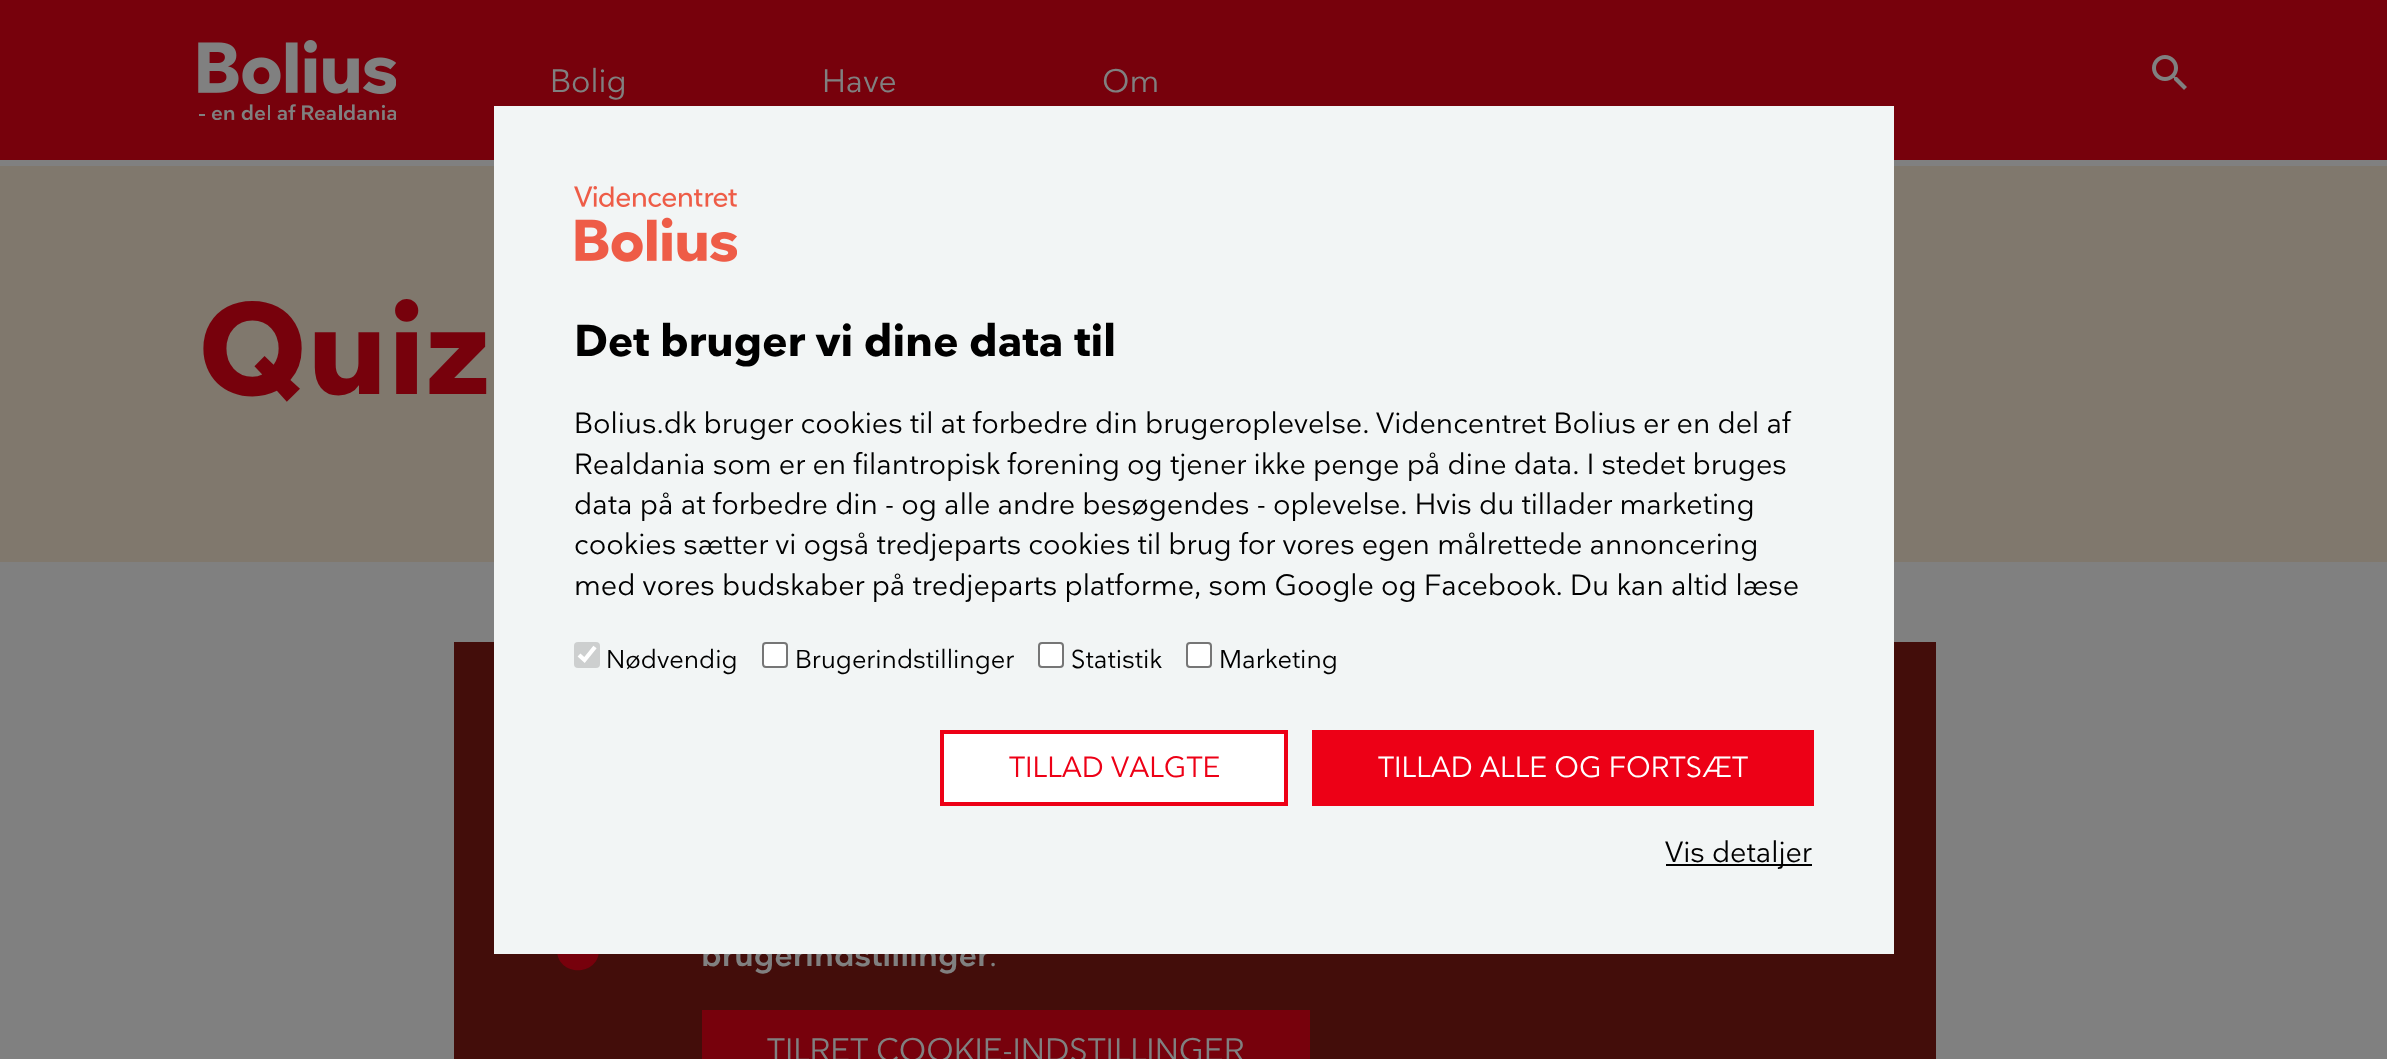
<svg xmlns="http://www.w3.org/2000/svg" width="2387" height="1059">
	<rect width="100%" height="100%" fill="#808080" />
	<rect x="0" y="0" width="2387" height="160" fill="#77010C" />
	<image x="198" y="40" width="198" height="80" href="assets/img1.png" />
	<g font-family="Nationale" font-size="32" fill="#808080">
		<text x="550" y="92">Bolig</text>
		<text x="822" y="92">Have</text>
		<text x="1102" y="92">Om</text>
	</g>
	<image x="2152" y="55" width="35" height="35" href="assets/img2.png" />
	<rect x="0" y="166" width="2387" height="396" fill="#80786D" />
	<text x="198" y="394" font-family="Nationale" font-size="128" font-weight="700" letter-spacing="-0.3" fill="#77010C">Quiz</text>
	<rect x="454" y="642" width="1482" height="417" fill="#430D0A" />
	<path d="M599 950C599 977 557 977 557 950C557 923 599 923 599 950ZM557 784H599V908H557Z" fill="#77010C" />
	<text x="701" y="966" font-family="Nationale" font-size="32" font-weight="600" fill="#808080">brugerindstillinger</text>
	<text x="989" y="966" font-family="Nationale" font-size="32" fill="#808080">.</text>
	<rect x="702" y="1010" width="608" height="49" fill="#77010C" />
	<text x="767" y="1061" font-family="Nationale" font-size="32" fill="#808080">TILRET COOKIE-INDSTILLINGER</text>
	<rect x="494" y="106" width="1400" height="848" fill="#F2F5F5" />
	<image x="574" y="186" width="163" height="76" href="assets/img3.png" />
	<text x="574" y="356" font-family="Nationale" font-size="44" font-weight="700" letter-spacing="-0.3" fill="#000000">Det bruger vi dine data til</text>
	<g font-family="Nationale" font-size="28.8" fill="#000000">
		<text x="574" y="433">Bolius.dk bruger cookies til at forbedre din brugeroplevelse.</text>
		<text x="1376" y="433">Videncentret Bolius er en del af</text>
		<text x="574" y="474">Realdania som er en filantropisk forening og tjener ikke penge på dine data. I stedet bruges</text>
		<text x="574" y="514">data på at forbedre din - og alle andre besøgendes - oplevelse. Hvis du tillader marketing</text>
		<text x="574" y="554">cookies sætter vi også tredjeparts cookies til brug for vores egen målrettede annoncering</text>
		<text x="574" y="595">med vores budskaber på tredjeparts platforme, som Google og Facebook. Du kan altid læse</text>
	</g>
	<rect x="574" y="642" width="26" height="26" rx="4" fill="#CDCFCF" />
	<path d="M579 655L584.5 660L595 647" fill="none" stroke="#FFFFFF" stroke-width="4.2" />
	<text x="606" y="668" font-family="Nationale" font-size="25.5" fill="#000000">Nødvendig</text>
	<rect x="763" y="643" width="24" height="24" rx="3" fill="#FFFFFF" stroke="#767676" stroke-width="2" />
	<text x="795" y="668" font-family="Nationale" font-size="25.5" fill="#000000">Brugerindstillinger</text>
	<rect x="1039" y="643" width="24" height="24" rx="3" fill="#FFFFFF" stroke="#767676" stroke-width="2" />
	<text x="1071" y="668" font-family="Nationale" font-size="25.5" fill="#000000">Statistik</text>
	<rect x="1187" y="643" width="24" height="24" rx="3" fill="#FFFFFF" stroke="#767676" stroke-width="2" />
	<text x="1219" y="668" font-family="Nationale" font-size="25.5" fill="#000000">Marketing</text>
	<rect x="942" y="732" width="344" height="72" fill="#FFFFFF" stroke="#ED0016" stroke-width="4" />
	<text x="1009" y="777" font-family="Nationale" font-size="28.8" fill="#ED0016">TILLAD VALGTE</text>
	<rect x="1312" y="730" width="502" height="76" fill="#ED0016" />
	<text x="1378" y="777" font-family="Nationale" font-size="28.8" fill="#FFFFFF">TILLAD ALLE OG FORTSÆT</text>
	<rect x="1666" y="864" width="146" height="2" fill="#000000" />
	<text x="1665" y="862" font-family="Nationale" font-size="28.8" fill="#000000">Vis detaljer</text>
</svg>
